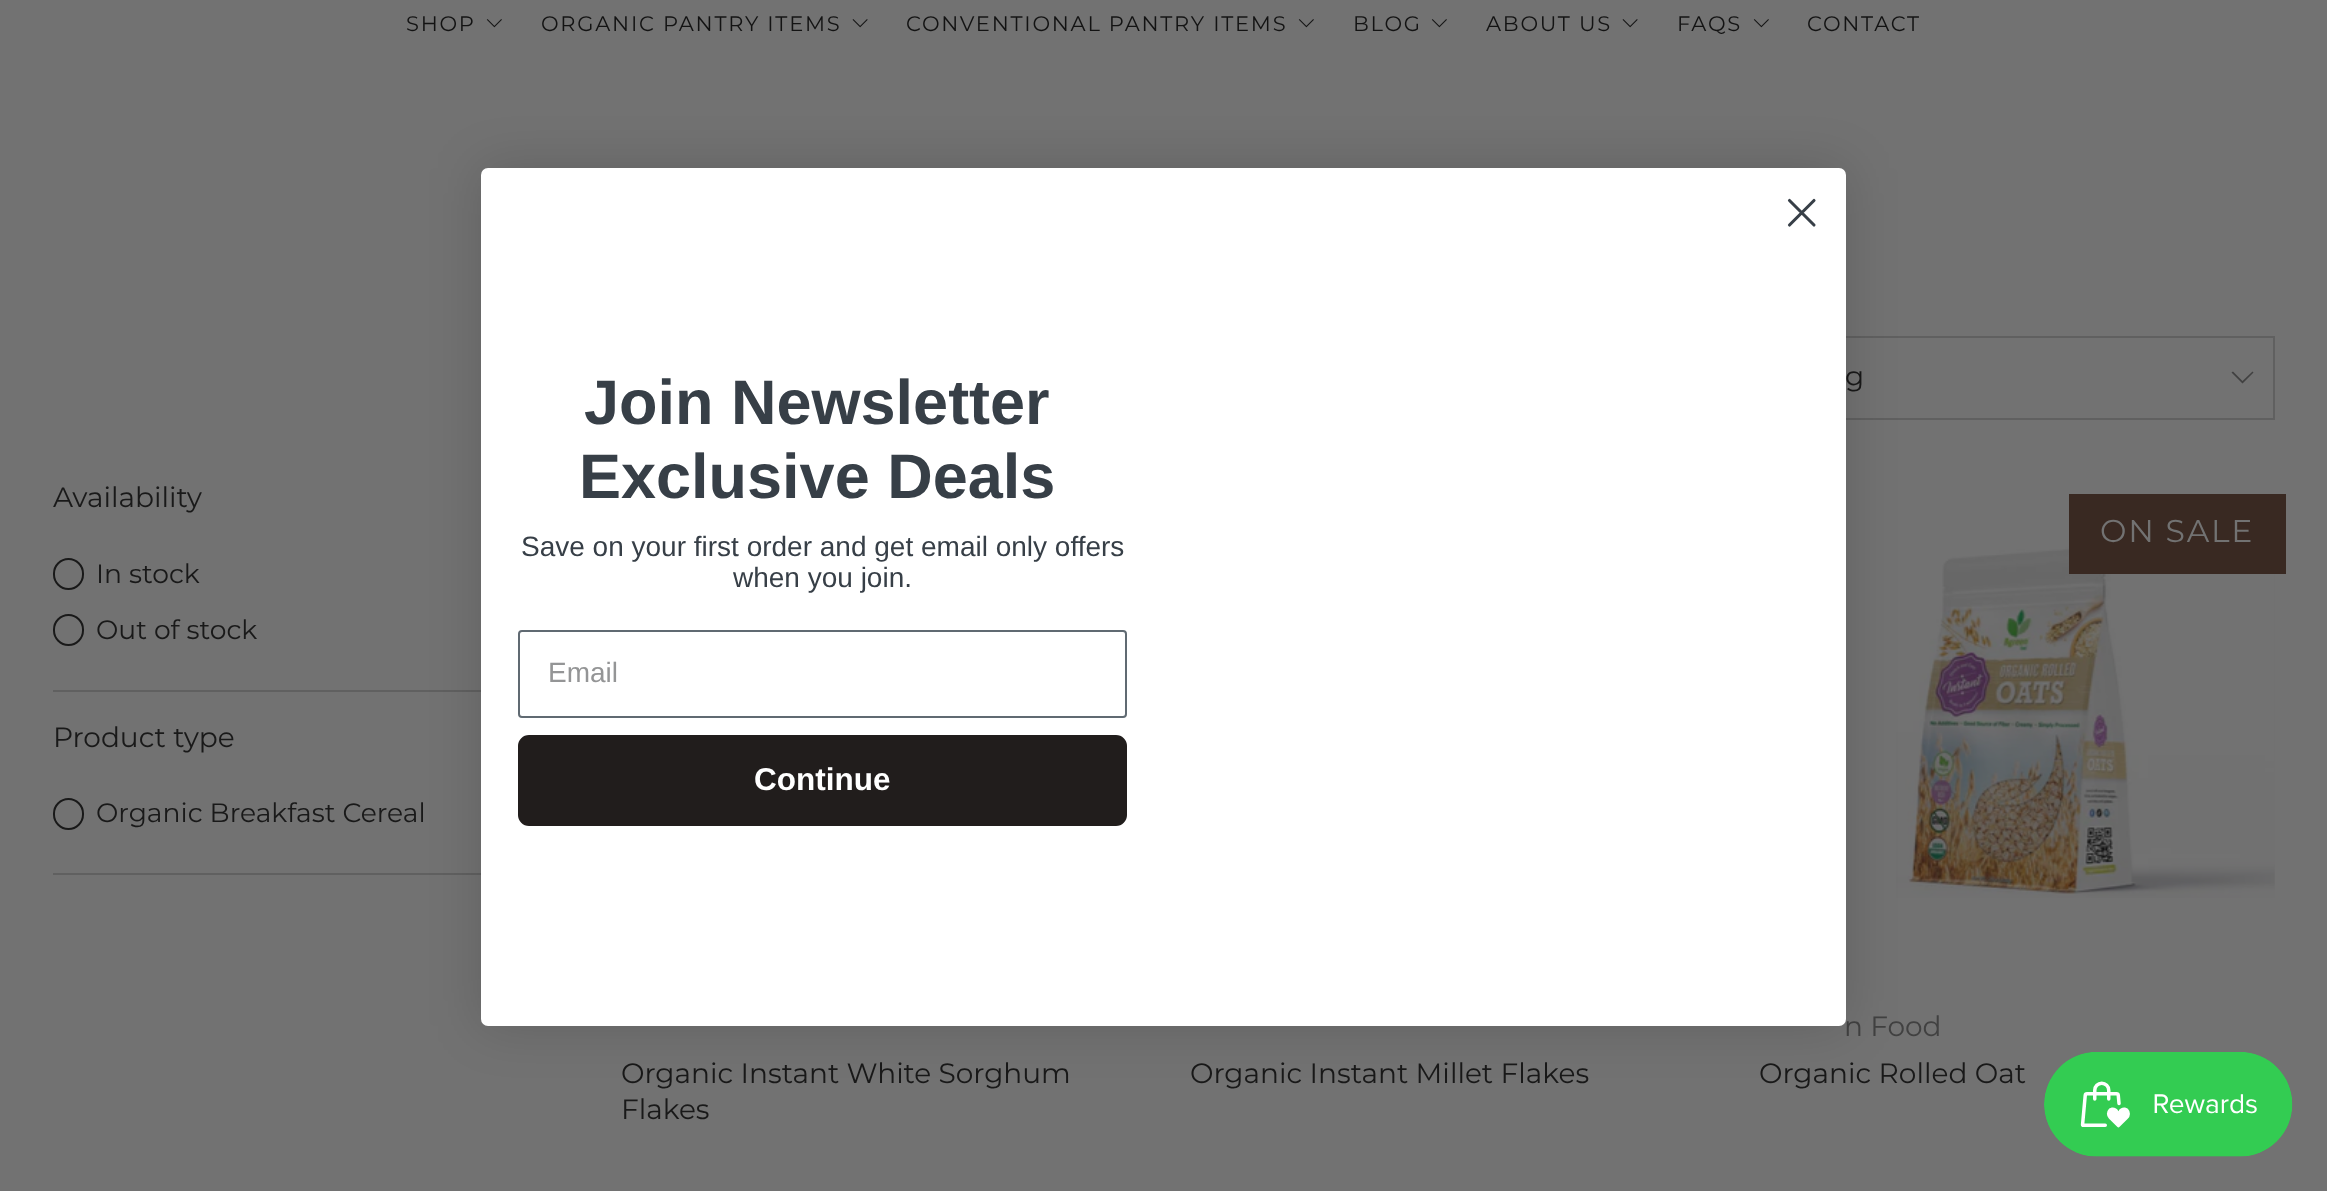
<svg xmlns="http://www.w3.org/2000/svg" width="2327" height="1191">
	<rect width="100%" height="100%" fill="#727272" />
	<text x="406" y="31" font-family="Montserrat" font-size="21" letter-spacing="1.75" fill="#131313">SHOP</text>
	<image x="486" y="19" width="16" height="9" href="assets/img1.png" />
	<text x="541" y="31" font-family="Montserrat" font-size="21" letter-spacing="1.75" fill="#131313">ORGANIC PANTRY ITEMS</text>
	<image x="852" y="19" width="16" height="9" href="assets/img2.png" />
	<text x="906" y="31" font-family="Montserrat" font-size="21" letter-spacing="1.75" fill="#131313">CONVENTIONAL PANTRY ITEMS</text>
	<image x="1298" y="19" width="16" height="9" href="assets/img1.png" />
	<text x="1353" y="31" font-family="Montserrat" font-size="21" letter-spacing="1.75" fill="#131313">BLOG</text>
	<image x="1431" y="19" width="16" height="9" href="assets/img1.png" />
	<text x="1486" y="31" font-family="Montserrat" font-size="21" letter-spacing="1.75" fill="#131313">ABOUT US</text>
	<image x="1622" y="19" width="16" height="9" href="assets/img2.png" />
	<text x="1677" y="31" font-family="Montserrat" font-size="21" letter-spacing="1.75" fill="#131313">FAQS</text>
	<image x="1753" y="19" width="16" height="9" href="assets/img1.png" />
	<text x="1807" y="31" font-family="Montserrat" font-size="21" letter-spacing="1.75" fill="#131313">CONTACT</text>
	<rect x="1681" y="337" width="593" height="82" fill="none" stroke="#606060" stroke-width="2" />
	<text x="1845" y="386" font-family="Montserrat" font-size="28" fill="#191919">g</text>
	<path d="M2233 371.5L2231.5 372.5L2242.5 383.5L2253.5 372.5L2252.5 371.5L2242.5 381Z" fill="#414141" />
	<rect x="53" y="690" width="428" height="2" fill="#606060" />
	<text x="53" y="507" font-family="Montserrat" font-size="28" fill="#191919">Availability</text>
	<rect x="54" y="559" width="29" height="30" rx="14.5" fill="none" stroke="#191919" stroke-width="2" />
	<text x="96" y="583" font-family="Montserrat" font-size="26.6" fill="#191919">In stock</text>
	<rect x="54" y="615" width="29" height="30" rx="14.5" fill="none" stroke="#191919" stroke-width="2" />
	<text x="96" y="639" font-family="Montserrat" font-size="26.6" fill="#191919">Out of stock</text>
	<rect x="53" y="873" width="428" height="2" fill="#606060" />
	<text x="53" y="747" font-family="Montserrat" font-size="28" fill="#191919">Product type</text>
	<rect x="54" y="799" width="29" height="30" rx="14.5" fill="none" stroke="#191919" stroke-width="2" />
	<text x="96" y="822" font-family="Montserrat" font-size="26.6" fill="#191919">Organic Breakfast Cereal</text>
	<g font-family="Montserrat" font-size="28" fill="#191919">
		<text x="621" y="1083">Organic Instant White Sorghum</text>
		<text x="621" y="1119">Flakes</text>
		<text x="1190" y="1083">Organic Instant Millet Flakes</text>
	</g>
	<image x="1896" y="546" width="379" height="352" href="assets/img3.png" />
	<rect x="2069" y="494" width="217" height="80" fill="#392922" />
	<text x="2100" y="542" font-family="Montserrat" font-size="31.5" letter-spacing="1.75" fill="#727272">ON SALE</text>
	<text x="1844" y="1036" font-family="Montserrat" font-size="28" fill="#414141">n Food</text>
	<text x="1759" y="1083" font-family="Montserrat" font-size="28" fill="#191919">Organic Rolled Oat</text>
	<rect x="481" y="168" width="1365" height="858" rx="7" fill="#000000" fill-opacity="0.15" filter="blur(26px)" />
	<rect x="481" y="168" width="1365" height="858" rx="7" fill="#FFFFFF" />
	<path d="M1789.5 200.5L1814 225M1789.5 225L1814 200.5Z" fill="none" stroke="#373F47" stroke-width="3.1" stroke-linecap="round" stroke-linejoin="round" />
	<g font-family="Liberation Sans" font-size="63" font-weight="700" fill="#373F47">
		<text x="584" y="424">Join Newsletter</text>
		<text x="579" y="498">Exclusive Deals</text>
	</g>
	<g font-family="Liberation Sans" font-size="28" fill="#373F47">
		<text x="521" y="556">Save on your first order and get email only offers</text>
		<text x="733" y="587">when you join.</text>
	</g>
	<rect x="519" y="631" width="607" height="86" rx="3" fill="none" stroke="#606A72" stroke-width="2" />
	<text x="548" y="682" font-family="Liberation Sans" font-size="28" fill="#949596">Email</text>
	<rect x="523.5" y="740.5" width="598" height="80" rx="5.5" fill="#211D1C" stroke="#211D1C" stroke-width="11" />
	<text x="754" y="790" font-family="Liberation Sans" font-size="31.5" font-weight="700" fill="#FFFFFF">Continue</text>
	<image x="2044" y="1052" width="249" height="105" href="assets/img4.png" />
</svg>
